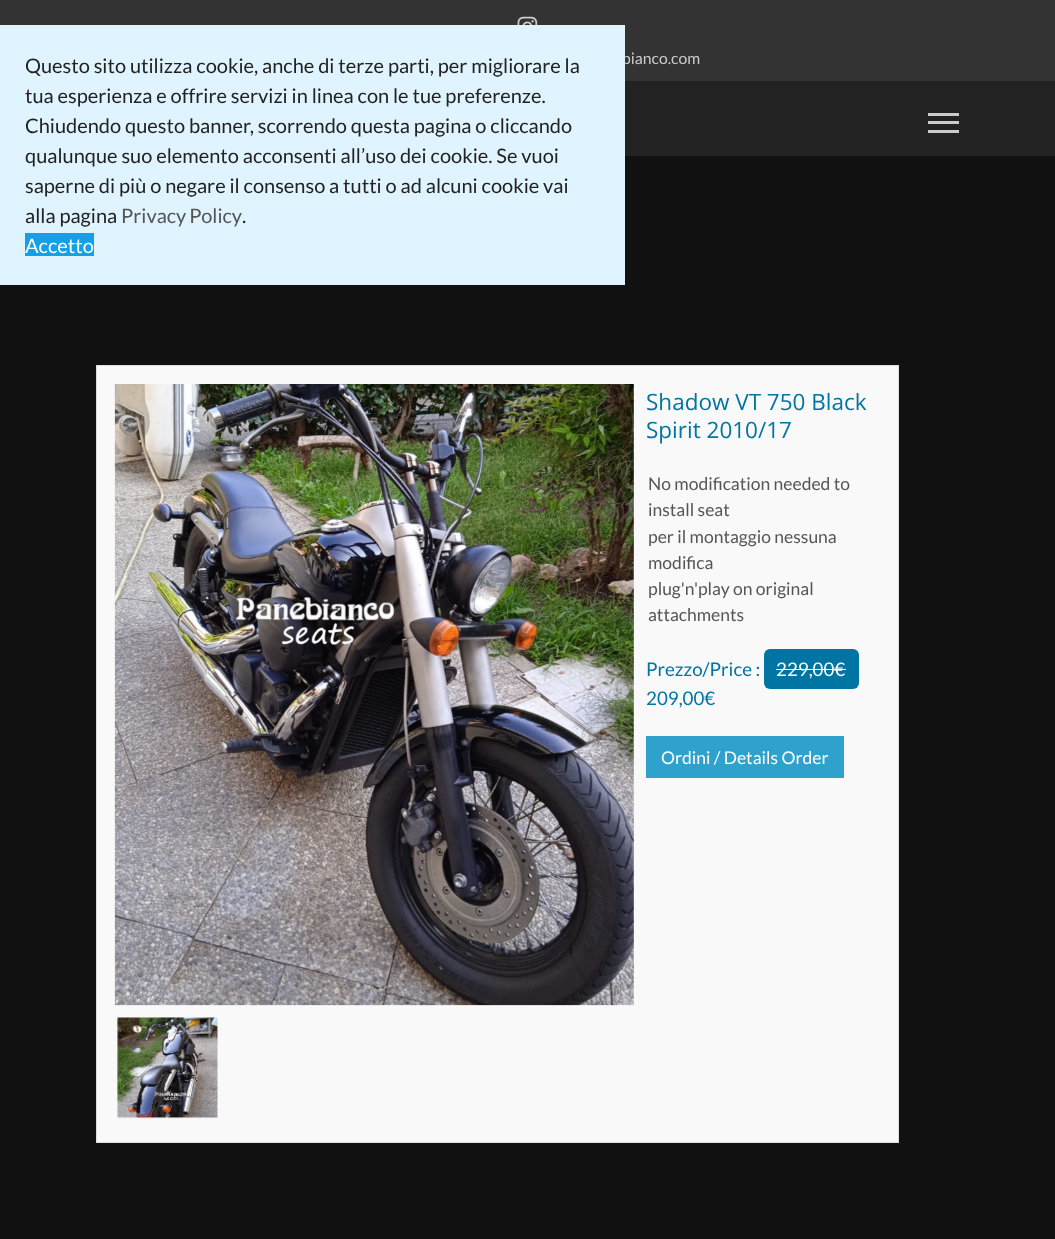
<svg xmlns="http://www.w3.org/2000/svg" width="1055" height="1239">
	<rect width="100%" height="100%" fill="#111111" />
	<rect x="0" y="0" width="1055" height="81" fill="#333333" />
	<text x="622" y="64" font-family="Lato" font-size="15.75" fill="#CCCCCC">bianco.com</text>
	<rect x="0" y="25" width="625" height="260" fill="#E0F4FF" />
	<g font-family="Lato" font-size="20" fill="#222222">
		<text x="25" y="73">Questo sito utilizza cookie, anche di terze parti, per migliorare la</text>
		<text x="25" y="103">tua esperienza e offrire servizi in linea con le tue preferenze.</text>
		<text x="25" y="133">Chiudendo questo banner, scorrendo questa pagina o cliccando</text>
		<text x="25" y="163">qualunque suo elemento acconsenti all’uso dei cookie. Se vuoi</text>
		<text x="25" y="193">saperne di più o negare il consenso a tutti o ad alcuni cookie vai</text>
		<text x="25" y="223">alla pagina</text>
	</g>
	<text x="121" y="223" word-spacing="-1" font-family="Lato" font-size="20" fill="#555555">Privacy Policy</text>
	<text x="242" y="223" font-family="Lato" font-size="20" fill="#222222">.</text>
	<rect x="25" y="233" width="69" height="23" fill="#15A0E6" />
	<text x="25" y="253" font-family="Lato" font-size="20" fill="#FFFFFF">Accetto</text>
	<image x="517" y="16" width="21" height="9" href="assets/img1.png" />
	<rect x="625" y="81" width="430" height="75" fill="#222222" />
	<rect x="928" y="113" width="31" height="3" fill="#CCCCCC" />
	<rect x="928" y="121" width="31" height="3" fill="#CCCCCC" />
	<rect x="928" y="130" width="31" height="3" fill="#CCCCCC" />
	<rect x="96.5" y="365.5" width="802" height="777" fill="#F9F9F9" stroke="#DEDEDE" />
	<image x="114" y="384" width="520" height="622" href="assets/img2.png" />
	<image x="117" y="1017" width="101" height="102" href="assets/img3.png" />
	<g font-family="Open Sans" font-size="22.5" fill="#0074A2">
		<text x="646" y="410">Shadow VT 750 Black</text>
		<text x="646" y="438">Spirit 2010/17</text>
	</g>
	<g font-family="Lato" font-size="17.5" fill="#555555">
		<text x="648" y="490">No modification needed to</text>
		<text x="648" y="516">install seat</text>
		<text x="648" y="543">per il montaggio nessuna</text>
		<text x="648" y="569">modifica</text>
		<text x="648" y="595">plug'n'play on original</text>
		<text x="648" y="621">attachments</text>
	</g>
	<text x="646" y="676" font-family="Lato" font-size="18.75" fill="#0074A2">Prezzo/Price :</text>
	<rect x="764" y="649" width="95" height="40" rx="6" fill="#0074A2" />
	<text x="776" y="676" font-family="Lato" font-size="18.75" fill="#F9F9F9">229,00€</text>
	<rect x="776" y="669" width="70" height="1" fill="#F9F9F9" />
	<text x="646" y="705" font-family="Lato" font-size="18.75" fill="#0074A2">209,00€</text>
	<rect x="646" y="736" width="198" height="42" fill="#2EA2CD" />
	<text x="661" y="764" font-family="Lato" font-size="17.5" fill="#FFFFFF">Ordini / Details Order</text>
</svg>
